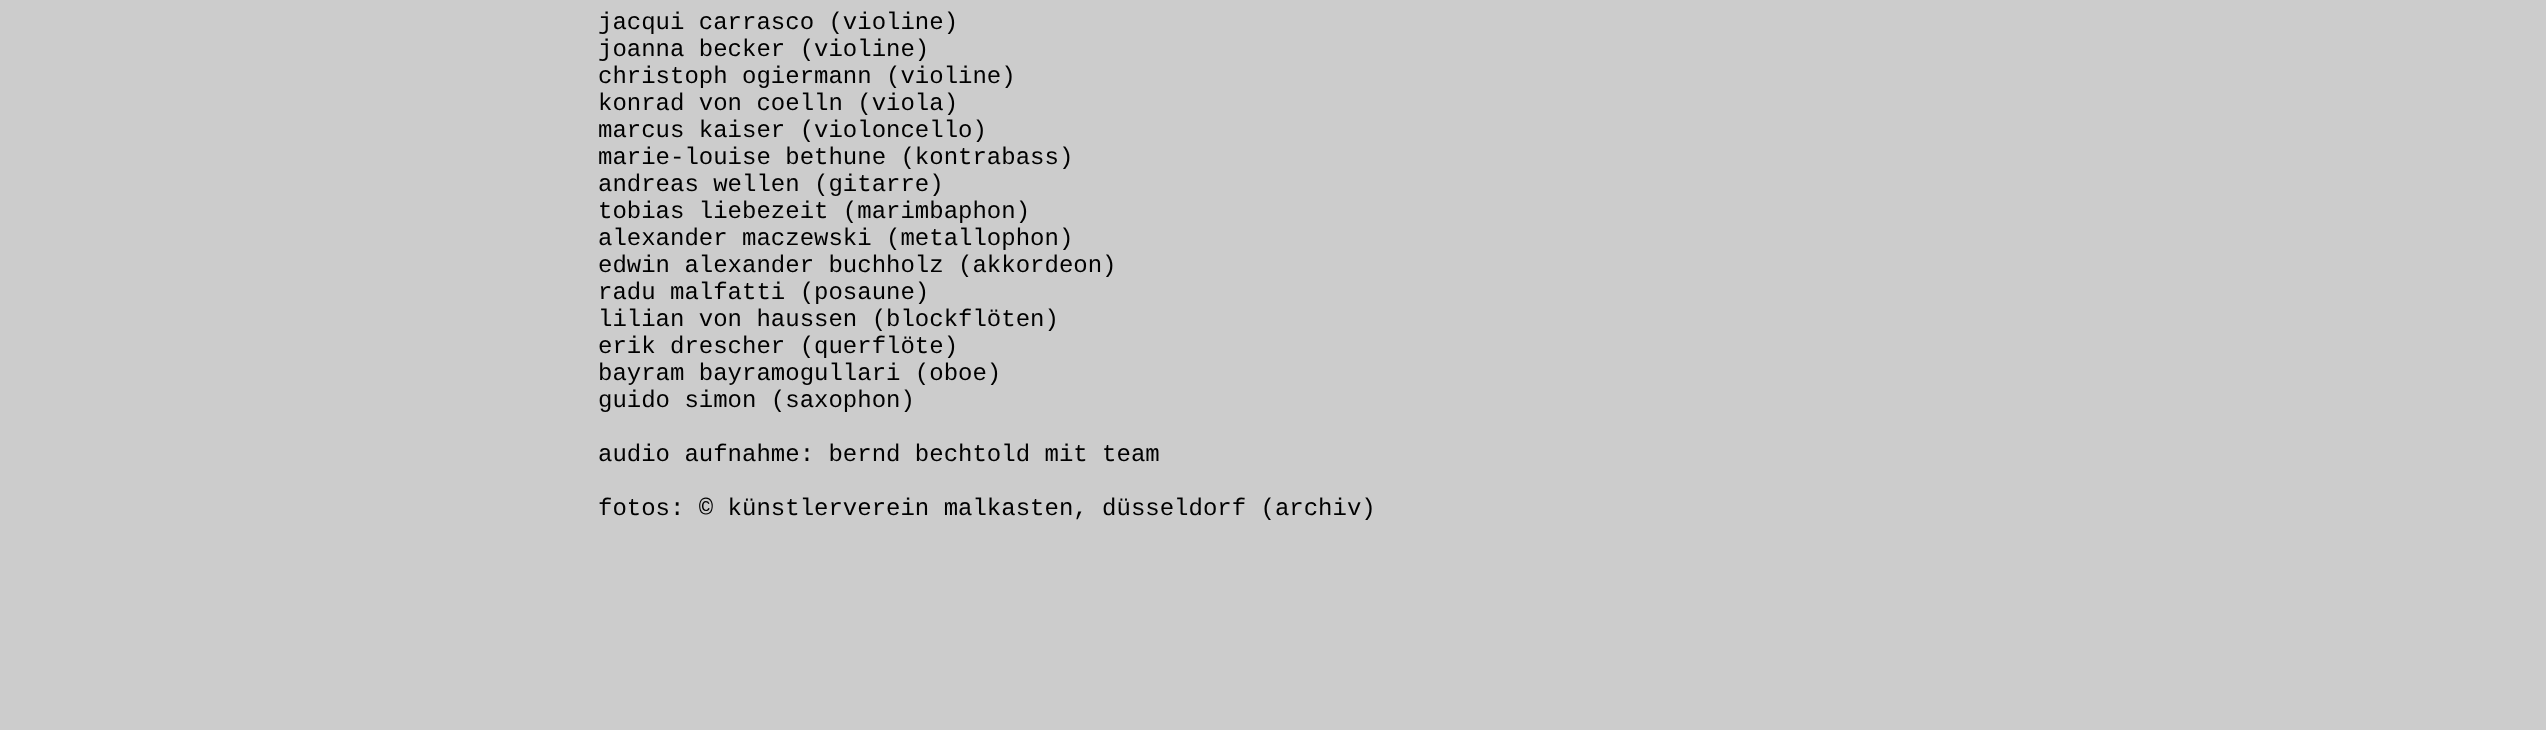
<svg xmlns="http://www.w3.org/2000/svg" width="2546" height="730">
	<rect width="100%" height="100%" fill="#CCCCCC" />
	<g font-family="Liberation Mono" font-size="24" fill="#000000">
		<text x="598" y="29">jacqui carrasco (violine)</text>
		<text x="598" y="56">joanna becker (violine)</text>
		<text x="598" y="83">christoph ogiermann (violine)</text>
		<text x="598" y="110">konrad von coelln (viola)</text>
		<text x="598" y="137">marcus kaiser (violoncello)</text>
		<text x="598" y="164">marie-louise bethune (kontrabass)</text>
		<text x="598" y="191">andreas wellen (gitarre)</text>
		<text x="598" y="218">tobias liebezeit (marimbaphon)</text>
		<text x="598" y="245">alexander maczewski (metallophon)</text>
		<text x="598" y="272">edwin alexander buchholz (akkordeon)</text>
		<text x="598" y="299">radu malfatti (posaune)</text>
		<text x="598" y="326">lilian von haussen (blockflöten)</text>
		<text x="598" y="353">erik drescher (querflöte)</text>
		<text x="598" y="380">bayram bayramogullari (oboe)</text>
		<text x="598" y="407">guido simon (saxophon)</text>
		<text x="598" y="461">audio aufnahme: bernd bechtold mit team</text>
		<text x="598" y="515">fotos: © künstlerverein malkasten, düsseldorf (archiv)</text>
	</g>
</svg>
